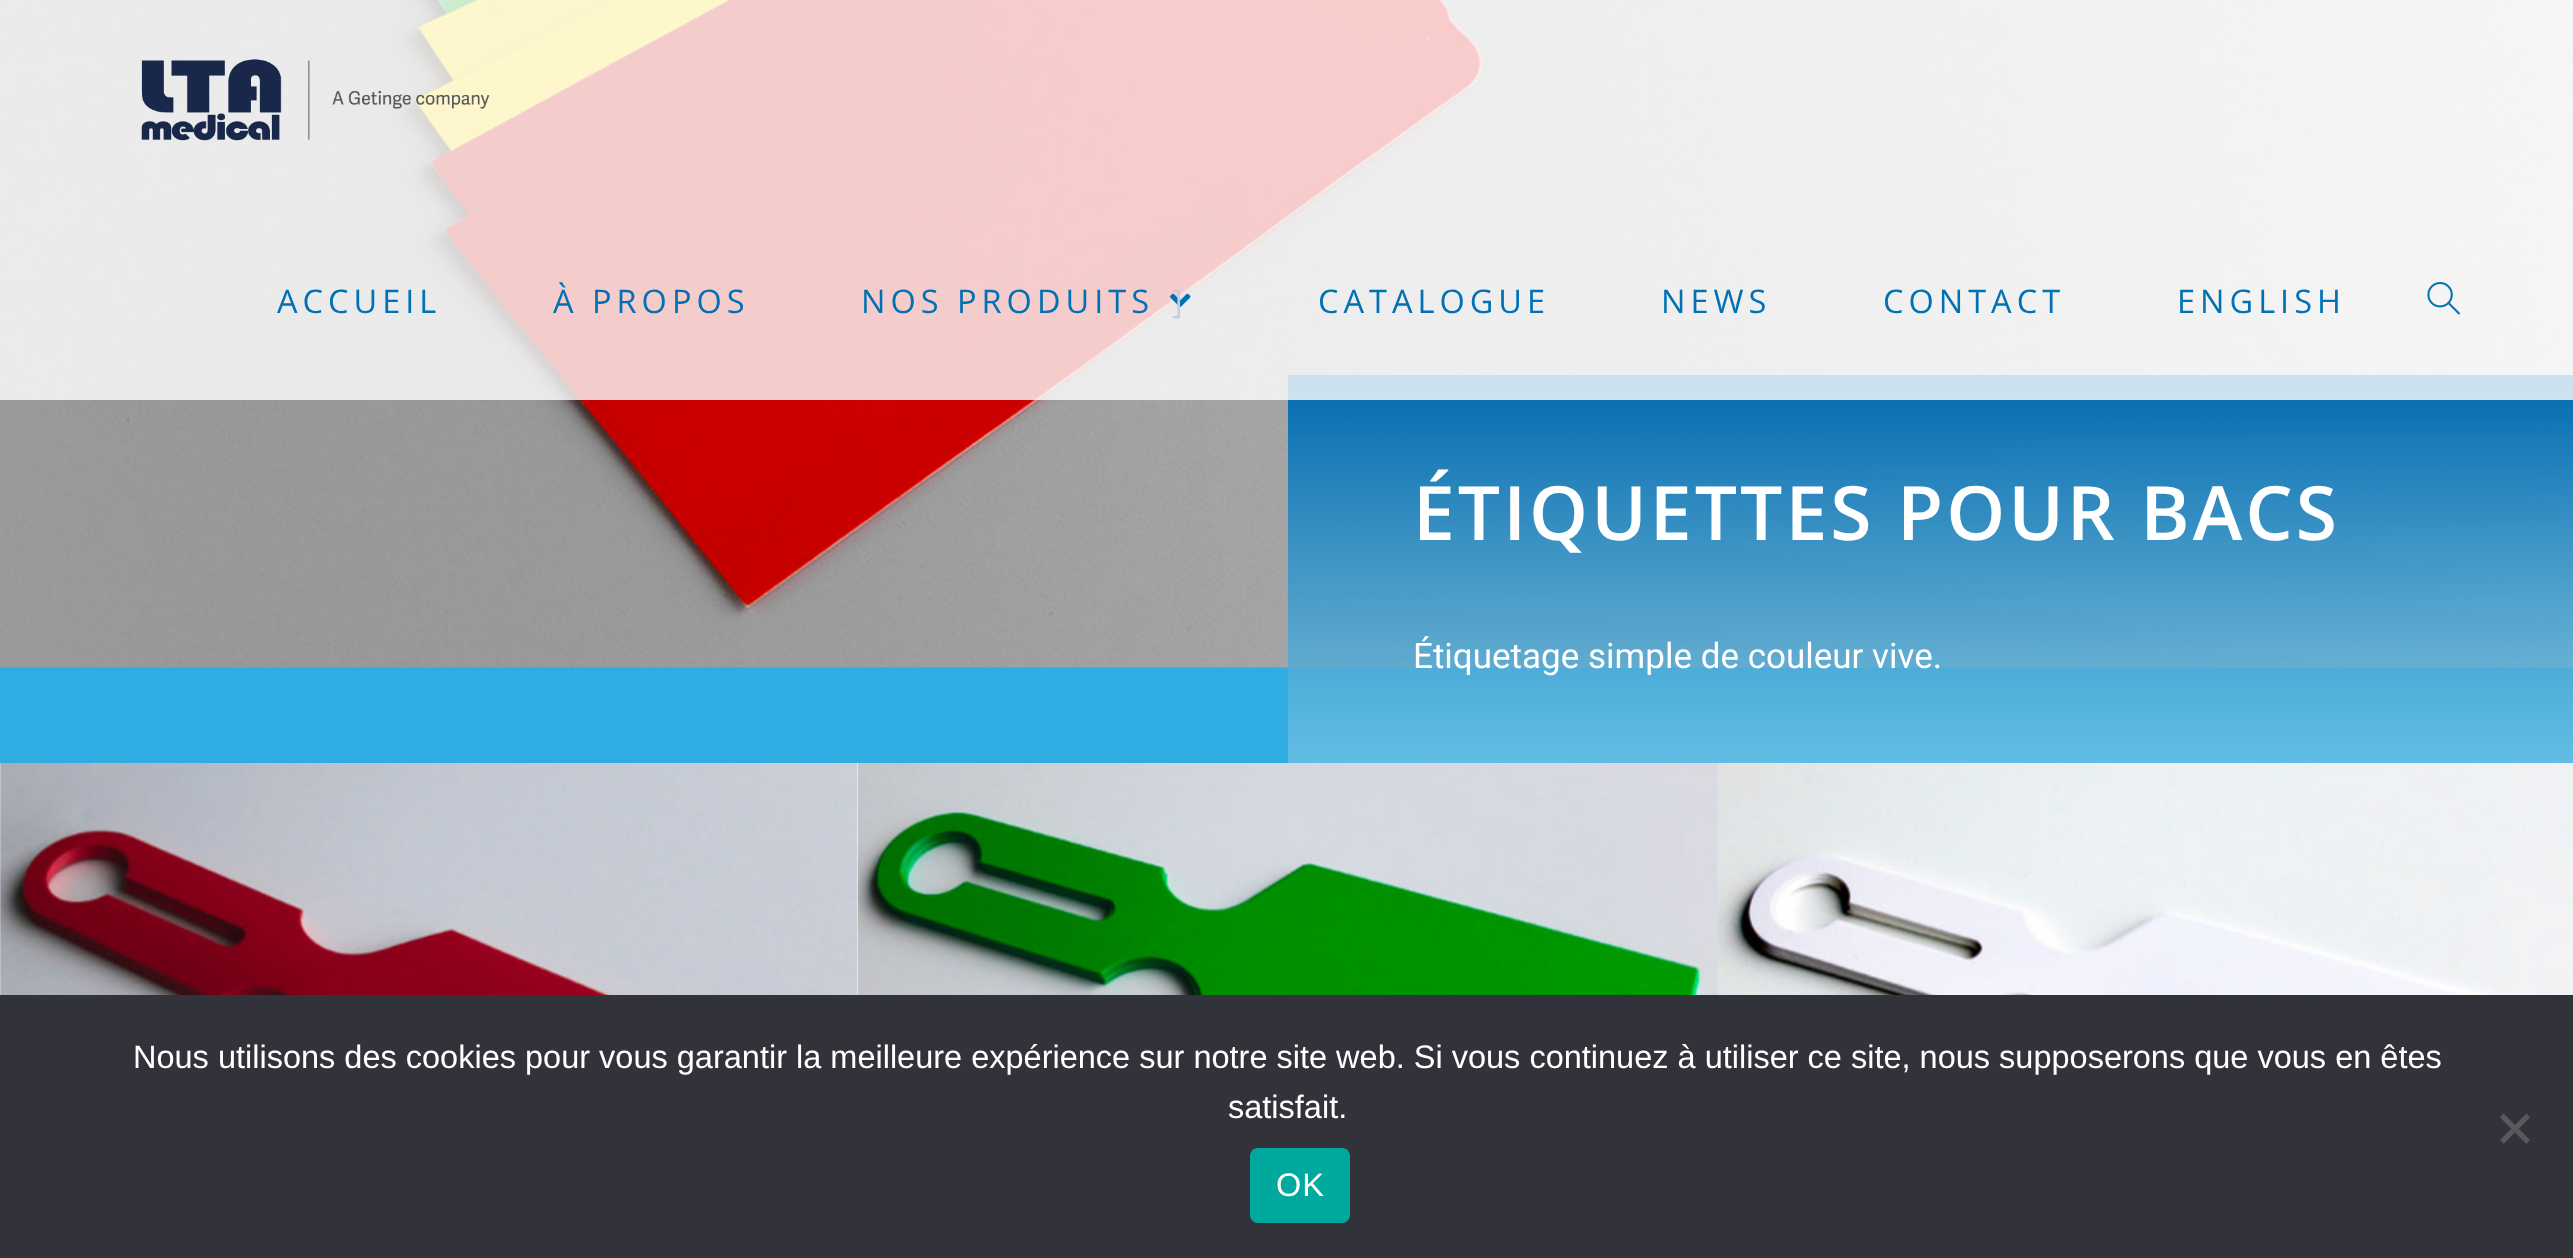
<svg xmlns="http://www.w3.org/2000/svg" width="2573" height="1258">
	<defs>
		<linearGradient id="g1" gradientUnits="userSpaceOnUse" x1="1931" y1="375" x2="1931" y2="763"><stop offset="0" stop-color="#0069AE" /><stop offset="1" stop-color="#6EC1E4" stop-opacity="0.79" /></linearGradient>
	</defs>
	<rect width="100%" height="100%" fill="#FFFFFF" />
	<rect x="0" y="667" width="2573" height="96" fill="#2FADE2" />
	<image x="0" y="0" width="2573" height="668" href="assets/img4.png" />
	<rect x="1288" y="375" width="1285" height="388" fill="url(#g1)" />
	<rect x="0" y="0" width="2573" height="400" fill="#FFFFFF" fill-opacity="0.8" />
	<image x="141" y="59" width="349" height="82" href="assets/img1.png" />
	<g font-family="Open Sans" font-size="32.5" letter-spacing="5" fill="#0071B4">
		<text x="277" y="313">ACCUEIL</text>
		<text x="553" y="313">À PROPOS</text>
		<text x="861" y="313">NOS PRODUITS</text>
	</g>
	<image x="1170" y="293" width="21" height="14" href="assets/img2.png" />
	<text x="1172" y="313" font-family="Open Sans" font-size="32.5" letter-spacing="5" fill="#C7CED9">]</text>
	<g font-family="Open Sans" font-size="32.5" letter-spacing="5" fill="#0071B4">
		<text x="1318" y="313">CATALOGUE</text>
		<text x="1661" y="313">NEWS</text>
		<text x="1883" y="313">CONTACT</text>
		<text x="2177" y="313">ENGLISH</text>
	</g>
	<image x="2427" y="282" width="33" height="33" href="assets/img3.png" />
	<text x="1413" y="540" font-family="Open Sans" font-size="75" font-weight="600" letter-spacing="3" fill="#FFFFFF">ÉTIQUETTES POUR BACS</text>
	<text x="1413" y="668" font-family="Roboto" font-size="35" fill="#FFFFFF">Étiquetage simple de couleur vive.</text>
	<image x="0" y="763" width="858" height="232" href="assets/img5.png" />
	<image x="858" y="763" width="860" height="232" href="assets/img6.png" />
	<image x="1717" y="763" width="856" height="232" href="assets/img7.png" />
	<rect x="0" y="995" width="2573" height="263" fill="#32323A" />
	<g font-family="Liberation Sans" font-size="32.5" fill="#FFFFFF">
		<text x="133" y="1068">Nous utilisons des cookies pour vous garantir la meilleure expérience sur notre site web. Si vous continuez à utiliser ce site, nous supposerons que vous en êtes</text>
		<text x="1228" y="1118">satisfait.</text>
	</g>
	<path d="M2526.5 1113.5L2530 1117.5L2503.5 1144L2500 1140Z" fill="#59595D" />
	<path d="M2500 1117.5L2503.5 1113.5L2530 1140L2526.5 1144Z" fill="#59595D" />
	<rect x="1250" y="1148" width="100" height="75" rx="8" fill="#00A99D" />
	<text x="1276" y="1196" font-family="Liberation Sans" font-size="32.5" letter-spacing="1" fill="#FFFFFF">OK</text>
</svg>
